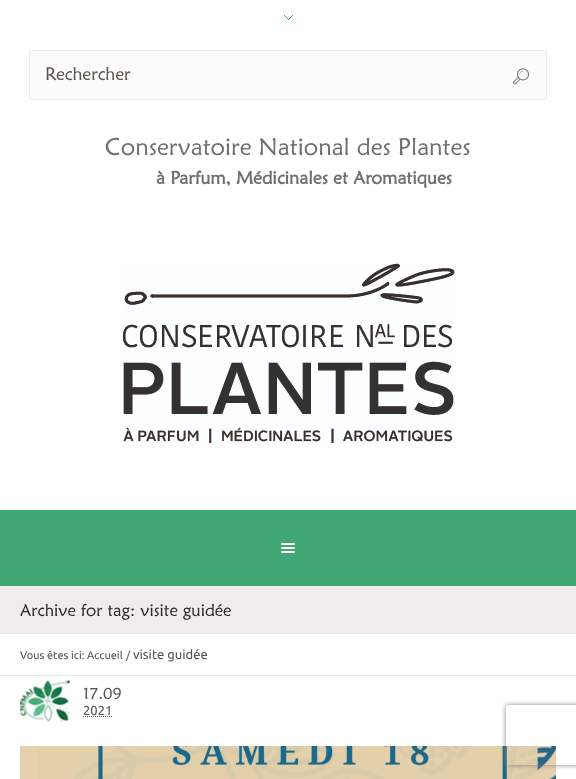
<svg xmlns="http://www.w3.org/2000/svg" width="576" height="779">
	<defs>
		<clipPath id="clip1"><path d="M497 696H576V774H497ZM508 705H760C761 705 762 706 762 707V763C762 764 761 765 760 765H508C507 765 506 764 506 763V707C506 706 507 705 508 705Z" clip-rule="evenodd" /></clipPath>
	</defs>
	<rect width="100%" height="100%" fill="#FFFFFF" />
	<rect x="288" y="19" width="1" height="1" fill="#41A775" />
	<rect x="292" y="15" width="1" height="1" fill="#41A775" />
	<rect x="284" y="15" width="1" height="1" fill="#41A775" />
	<rect x="291" y="16" width="1" height="1" fill="#41A775" />
	<rect x="285" y="16" width="1" height="1" fill="#41A775" />
	<rect x="290" y="17" width="1" height="1" fill="#41A775" />
	<rect x="286" y="17" width="1" height="1" fill="#41A775" />
	<rect x="289" y="18" width="1" height="1" fill="#41A775" />
	<rect x="287" y="18" width="1" height="1" fill="#41A775" />
	<rect x="29.5" y="50.5" width="517" height="49" rx="2.5" fill="#FBFBFB" stroke="#EBEBEB" />
	<text x="45" y="80" font-family="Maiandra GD" font-size="18" fill="#5A544D">Rechercher</text>
	<image x="513" y="68" width="16" height="17" href="assets/img1.png" />
	<text x="105" y="155" font-family="Maiandra GD" font-size="24" fill="#707070">Conservatoire National des Plantes</text>
	<text x="156" y="184" font-family="Maiandra GD" font-size="18" font-weight="700" fill="#707070">à Parfum, Médicinales et Aromatiques</text>
	<image x="123" y="263" width="332" height="180" href="assets/img2.png" />
	<rect x="0" y="510" width="576" height="76" fill="#41A775" />
	<image x="281" y="543" width="14" height="10" href="assets/img3.png" />
	<rect x="0" y="633" width="576" height="1" fill="#E9E9E9" />
	<rect x="0" y="586" width="576" height="47" fill="#F1ECEC" />
	<text x="20" y="616" font-family="Maiandra GD" font-size="17" fill="#2D2A26">Archive for tag: visite guidée</text>
	<rect x="0" y="675" width="576" height="1" fill="#E9E9E9" />
	<g font-family="Ubuntu" font-size="11" fill="#5A544D">
		<text x="20" y="659">Vous êtes ici:</text>
		<text x="87" y="659">Accueil</text>
		<text x="126" y="659">/</text>
	</g>
	<text x="133" y="659" font-family="Ubuntu" font-size="13" fill="#5A544D">visite guidée</text>
	<image x="20" y="679" width="50" height="44" href="assets/img4.png" />
	<text x="83" y="699" font-family="Maiandra GD" font-size="16" fill="#5A544D">17.09</text>
	<text x="83" y="715" font-family="Ubuntu" font-size="13" fill="#5A544D">2021</text>
	<path d="M83 716.5H112.5" fill="none" stroke="#5A544D" stroke-dasharray="1 1" />
	<image x="20" y="746" width="536" height="33" href="assets/img5.png" />
	<g clip-path="url(#clip1)">
		<rect x="506" y="705" width="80" height="60" rx="2" fill="#808080" filter="blur(2.5px)" />
	</g>
</svg>
